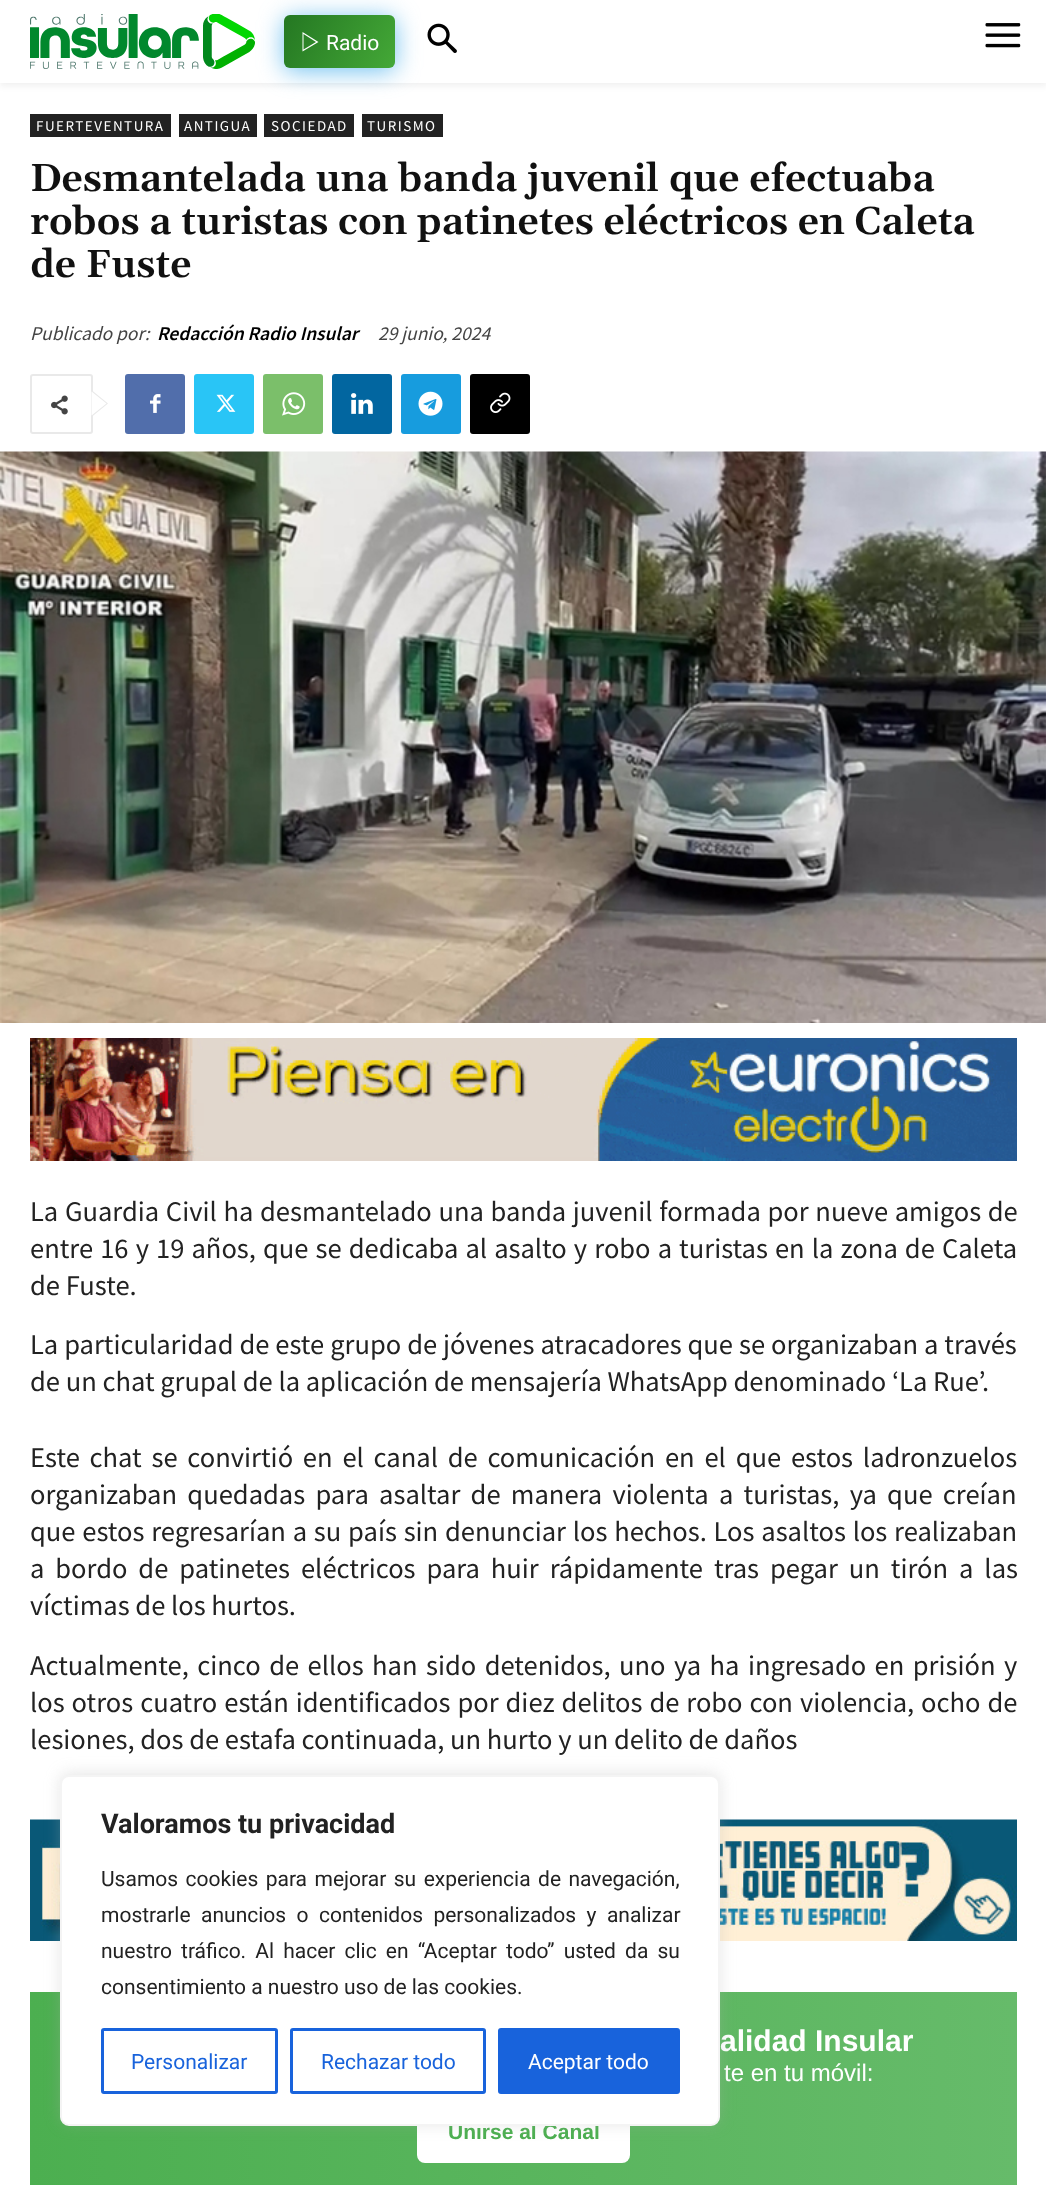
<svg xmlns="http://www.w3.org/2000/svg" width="1046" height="2185">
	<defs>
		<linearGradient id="g1" gradientUnits="userSpaceOnUse" x1="392" y1="72" x2="286" y2="11"><stop offset="0" stop-color="#44A837" /><stop offset="1" stop-color="#247722" /></linearGradient>
		<clipPath id="clip1"><path d="M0 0H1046V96H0ZM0 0H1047V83H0Z" clip-rule="evenodd" /></clipPath>
		<linearGradient id="g2" gradientUnits="userSpaceOnUse" x1="30" y1="2093" x2="1017" y2="2093"><stop offset="0" stop-color="#4CAF50" /><stop offset="1" stop-color="#66BB6A" /></linearGradient>
	</defs>
	<rect width="100%" height="100%" fill="#FFFFFF" />
	<image x="30" y="14" width="225" height="55" href="assets/img1.png" />
	<image x="427" y="23" width="30" height="30" href="assets/img2.png" />
	<rect x="284" y="18" width="111" height="53" rx="6" fill="#4DB2EC" fill-opacity="0.8" filter="blur(12px)" />
	<rect x="284" y="15" width="111" height="53" rx="6" fill="url(#g1)" />
	<path d="M302.5 32V51.5L318.5 42ZM316 42L303.5 49.5V34Z" fill="#FFFFFF" />
	<image x="985" y="23" width="36" height="25" href="assets/img3.png" />
	<g clip-path="url(#clip1)">
		<rect x="0" y="3" width="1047" height="83" fill="#000000" fill-opacity="0.06" filter="blur(3px)" />
	</g>
	<text x="326" y="50" font-family="Roboto" font-size="21" fill="#FFFFFF">Radio</text>
	<rect x="30" y="114" width="141" height="23" fill="#222222" />
	<text x="36" y="131" font-family="Source Sans Pro" font-size="15" letter-spacing="1.5" fill="#FFFFFF">FUERTEVENTURA</text>
	<rect x="179" y="114" width="78" height="23" fill="#222222" />
	<text x="184" y="131" font-family="Source Sans Pro" font-size="15" letter-spacing="1.5" fill="#FFFFFF">ANTIGUA</text>
	<rect x="264" y="114" width="90" height="23" fill="#222222" />
	<text x="271" y="131" font-family="Source Sans Pro" font-size="15" letter-spacing="1.5" fill="#FFFFFF">SOCIEDAD</text>
	<rect x="362" y="114" width="81" height="23" fill="#222222" />
	<text x="367" y="131" font-family="Source Sans Pro" font-size="15" letter-spacing="1.5" fill="#FFFFFF">TURISMO</text>
	<g font-family="Gelasio" font-size="39" font-weight="600" fill="#111111">
		<text x="30" y="191">Desmantelada una banda juvenil que efectuaba</text>
		<text x="30" y="234">robos a turistas con patinetes eléctricos en Caleta</text>
		<text x="30" y="277">de Fuste</text>
	</g>
	<text x="30" y="340" font-family="Source Sans Pro" font-size="19.5" font-style="italic" fill="#444444">Publicado por:</text>
	<text x="157" y="340" font-family="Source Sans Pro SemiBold" font-size="19.5" font-weight="600" font-style="italic" fill="#000000">Redacción Radio Insular</text>
	<text x="378" y="340" font-family="Source Sans Pro" font-size="19.5" font-style="italic" fill="#444444">29 junio, 2024</text>
	<rect x="31" y="375" width="61" height="58" rx="2" fill="none" stroke="#E9E9E9" stroke-width="2" />
	<path d="M91.5 417V390L108 403.5Z" fill="#E9E9E9" />
	<image x="51" y="395" width="17" height="20" href="assets/img4.png" />
	<path d="M91.5 415.5V391.5L106.5 403.5Z" fill="#FFFFFF" />
	<rect x="125" y="374" width="60" height="60" rx="3" fill="#516EAB" />
	<image x="150" y="394" width="11" height="19" href="assets/img5.png" />
	<rect x="194" y="374" width="60" height="60" rx="3" fill="#29C5F6" />
	<image x="216" y="394" width="20" height="18" href="assets/img6.png" />
	<rect x="263" y="374" width="60" height="60" rx="3" fill="#7BBF6A" />
	<image x="282" y="392" width="24" height="24" href="assets/img7.png" />
	<rect x="332" y="374" width="60" height="60" rx="3" fill="#0266A0" />
	<image x="351" y="393" width="22" height="21" href="assets/img8.png" />
	<rect x="401" y="374" width="60" height="60" rx="3" fill="#179CDE" />
	<image x="418" y="391" width="25" height="25" href="assets/img9.png" />
	<rect x="470" y="374" width="60" height="60" rx="3" fill="#000000" />
	<image x="490" y="392" width="21" height="21" href="assets/img10.png" />
	<image x="0" y="451" width="1046" height="572" href="assets/img11.png" />
	<image x="30" y="1038" width="987" height="123" href="assets/img12.png" />
	<g font-family="Source Sans Pro" font-size="28.5" fill="#222222">
		<text x="30" y="1221" word-spacing="1">La Guardia Civil ha desmantelado una banda juvenil formada por nueve amigos de</text>
		<text x="30" y="1258" word-spacing="1.4">entre 16 y 19 años, que se dedicaba al asalto y robo a turistas en la zona de Caleta</text>
		<text x="30" y="1295">de Fuste.</text>
		<text x="30" y="1354" word-spacing="0.25">La particularidad de este grupo de jóvenes atracadores que se organizaban a través</text>
		<text x="30" y="1391">de un chat grupal de la aplicación de mensajería WhatsApp denominado ‘La Rue’.</text>
		<text x="30" y="1467" word-spacing="4.1">Este chat se convirtió en el canal de comunicación en el que estos ladronzuelos</text>
		<text x="30" y="1504" word-spacing="4.6">organizaban quedadas para asaltar de manera violenta a turistas, ya que creían</text>
		<text x="30" y="1541" word-spacing="1.1">que estos regresarían a su país sin denunciar los hechos. Los asaltos los realizaban</text>
		<text x="30" y="1578" word-spacing="5.25">a bordo de patinetes eléctricos para huir rápidamente tras pegar un tirón a las</text>
		<text x="30" y="1615">víctimas de los hurtos.</text>
		<text x="30" y="1675" word-spacing="2.75">Actualmente, cinco de ellos han sido detenidos, uno ya ha ingresado en prisión y</text>
		<text x="30" y="1712" word-spacing="1.25">los otros cuatro están identificados por diez delitos de robo con violencia, ocho de</text>
		<text x="30" y="1749">lesiones, dos de estafa continuada, un hurto y un delito de daños</text>
	</g>
	<image x="30" y="1819" width="987" height="122" href="assets/img13.png" />
	<rect x="30" y="1992" width="987" height="193" fill="url(#g2)" />
	<text x="720" y="2051" font-family="Liberation Sans" font-size="30" font-weight="700" fill="#FFFFFF">alidad Insular</text>
	<text x="724" y="2081" font-family="Liberation Sans" font-size="24" fill="#FFFFFF">te en tu móvil:</text>
	<rect x="417" y="2102" width="213" height="61" rx="8" fill="#FFFFFF" />
	<text x="448" y="2139" font-family="Liberation Sans" font-size="21" font-weight="700" fill="#4CAF50">Unirse al Canal</text>
	<rect x="60" y="1773" width="660" height="351" rx="9" fill="#ACABAB" fill-opacity="0.3" filter="blur(7.5px)" />
	<rect x="61" y="1776" width="658" height="349" rx="8" fill="#FFFFFF" stroke="#F4F4F4" stroke-width="2" />
	<text x="101" y="1833" font-family="Roboto" font-size="27" font-weight="700" fill="#222222">Valoramos tu privacidad</text>
	<g font-family="Roboto" font-size="21" fill="#222222">
		<text x="101" y="1886" word-spacing="2.25">Usamos cookies para mejorar su experiencia de navegación,</text>
		<text x="101" y="1922" word-spacing="5.25">mostrarle anuncios o contenidos personalizados y analizar</text>
		<text x="101" y="1958" word-spacing="3.9">nuestro tráfico. Al hacer clic en “Aceptar todo” usted da su</text>
		<text x="101" y="1994">consentimiento a nuestro uso de las cookies.</text>
	</g>
	<rect x="102.5" y="2029.5" width="174" height="63" rx="1.5" fill="none" stroke="#1863DC" stroke-width="3" />
	<text x="131" y="2069" font-family="Roboto" font-size="21" fill="#1863DC">Personalizar</text>
	<rect x="291.5" y="2029.5" width="193" height="63" rx="1.5" fill="none" stroke="#1863DC" stroke-width="3" />
	<text x="321" y="2069" font-family="Roboto" font-size="21" fill="#1863DC">Rechazar todo</text>
	<rect x="499.5" y="2029.5" width="179" height="63" rx="1.5" fill="#1863DC" stroke="#1863DC" stroke-width="3" />
	<text x="528" y="2069" font-family="Roboto" font-size="21" fill="#FFFFFF">Aceptar todo</text>
</svg>
